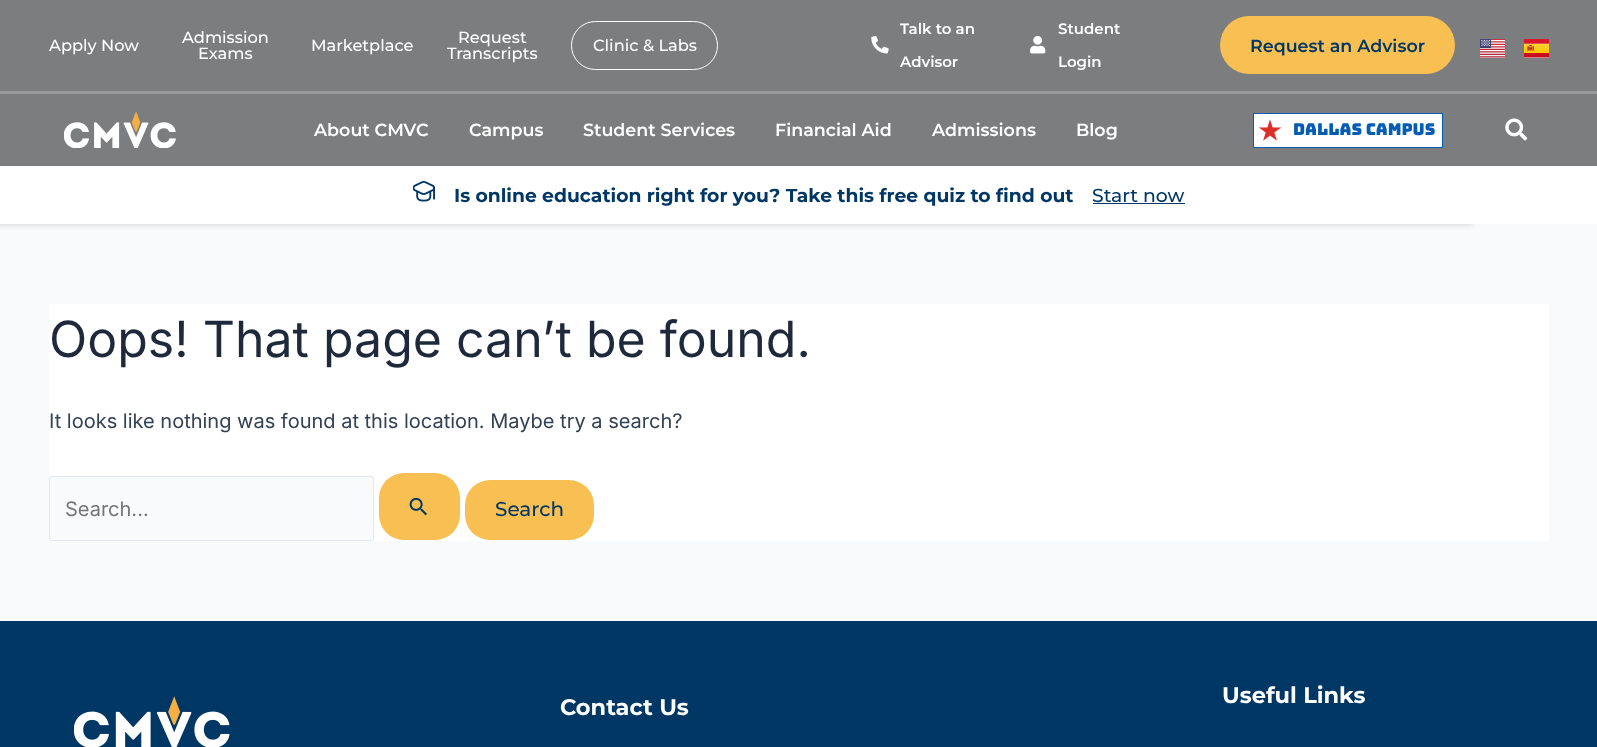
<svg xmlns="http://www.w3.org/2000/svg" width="1597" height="747">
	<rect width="100%" height="100%" fill="#F9FAFB" />
	<rect x="0" y="0" width="1597" height="91" fill="#7C7D7E" />
	<g font-family="Montserrat" font-size="16.25" font-weight="500" fill="#FFFFFF">
		<text x="49" y="51">Apply Now</text>
		<text x="182" y="43">Admission</text>
		<text x="198" y="59">Exams</text>
		<text x="311" y="51">Marketplace</text>
		<text x="458" y="43">Request</text>
		<text x="447" y="59">Transcripts</text>
	</g>
	<rect x="571.5" y="21.5" width="146" height="48" rx="24" fill="none" stroke="#FFFFFF" />
	<text x="593" y="51" font-family="Montserrat" font-size="16.25" font-weight="500" fill="#FFFFFF">Clinic &amp; Labs</text>
	<image x="871" y="36" width="18" height="18" href="assets/img1.png" />
	<g font-family="Montserrat" font-size="15" font-weight="600" fill="#FFFFFF">
		<text x="900" y="34">Talk to an</text>
		<text x="900" y="67">Advisor</text>
	</g>
	<image x="1030" y="35" width="16" height="19" href="assets/img2.png" />
	<g font-family="Montserrat" font-size="15" font-weight="600" fill="#FFFFFF">
		<text x="1058" y="34">Student</text>
		<text x="1058" y="67">Login</text>
	</g>
	<rect x="1220" y="16" width="235" height="58" rx="29" fill="#F8BF52" />
	<text x="1250" y="52" font-family="Montserrat" font-size="17.5" font-weight="600" fill="#013765">Request an Advisor</text>
	<image x="1480" y="39" width="25" height="19" href="assets/img3.png" />
	<image x="1524" y="39" width="25" height="19" href="assets/img4.png" />
	<rect x="-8" y="169" width="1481" height="57" fill="#000000" fill-opacity="0.1" filter="blur(2.5px)" />
	<rect x="0" y="94" width="1597" height="72" fill="#7C7D7E" />
	<rect x="0" y="91" width="1597" height="3" fill="#98999A" />
	<image x="64" y="111" width="112" height="37" href="assets/img5.png" />
	<g font-family="Montserrat" font-size="17.5" font-weight="600" fill="#FFFFFF">
		<text x="314" y="136">About CMVC</text>
		<text x="469" y="136">Campus</text>
		<text x="583" y="136">Student Services</text>
		<text x="775" y="136">Financial Aid</text>
		<text x="932" y="136">Admissions</text>
		<text x="1076" y="136">Blog</text>
	</g>
	<rect x="1253.5" y="113.5" width="189" height="34" fill="#FFFFFF" stroke="#045CB4" />
	<image x="1259" y="119" width="22" height="22" href="assets/img6.png" />
	<text x="1293" y="135" font-family="Bungee" font-size="16.25" fill="#045CB4">Dallas Campus</text>
	<image x="1505" y="118" width="23" height="23" href="assets/img7.png" />
	<rect x="0" y="166" width="1597" height="58" fill="#FFFFFF" />
	<image x="413" y="180" width="22" height="22" href="assets/img8.png" />
	<text x="454" y="202" font-family="Montserrat" font-size="18.75" font-weight="700" fill="#013765">Is online education right for you? Take this free quiz to find out</text>
	<text x="1092" y="202" font-family="Montserrat" font-size="18.75" font-weight="500" fill="#013765">Start now</text>
	<rect x="1093" y="203" width="92" height="1" fill="#013765" />
	<rect x="49" y="304" width="1500" height="237" fill="#FFFFFF" />
	<text x="49" y="357" font-family="Inter" font-size="50" fill="#1E293B">Oops! That page can’t be found.</text>
	<text x="49" y="428" font-family="Inter" font-size="20" fill="#334155">It looks like nothing was found at this location. Maybe try a search?</text>
	<rect x="49.5" y="476.5" width="324" height="64" rx="2" fill="#F9FAFB" stroke="#E2E8F0" />
	<text x="65" y="516" font-family="Inter" font-size="20" fill="#757575">Search...</text>
	<rect x="379" y="473" width="81" height="67" rx="25" fill="#F8BF52" />
	<image x="409" y="497" width="18" height="19" href="assets/img9.png" />
	<rect x="465" y="480" width="129" height="60" rx="25" fill="#F8BF52" />
	<text x="495" y="516" font-family="Montserrat" font-size="20" font-weight="500" fill="#013765">Search</text>
	<rect x="0" y="621" width="1597" height="126" fill="#013765" />
	<image x="74" y="696" width="156" height="51" href="assets/img10.png" />
	<g font-family="Montserrat" font-size="22.5" font-weight="700" fill="#FFFFFF">
		<text x="560" y="715">Contact Us</text>
		<text x="1222" y="703">Useful Links</text>
	</g>
</svg>
